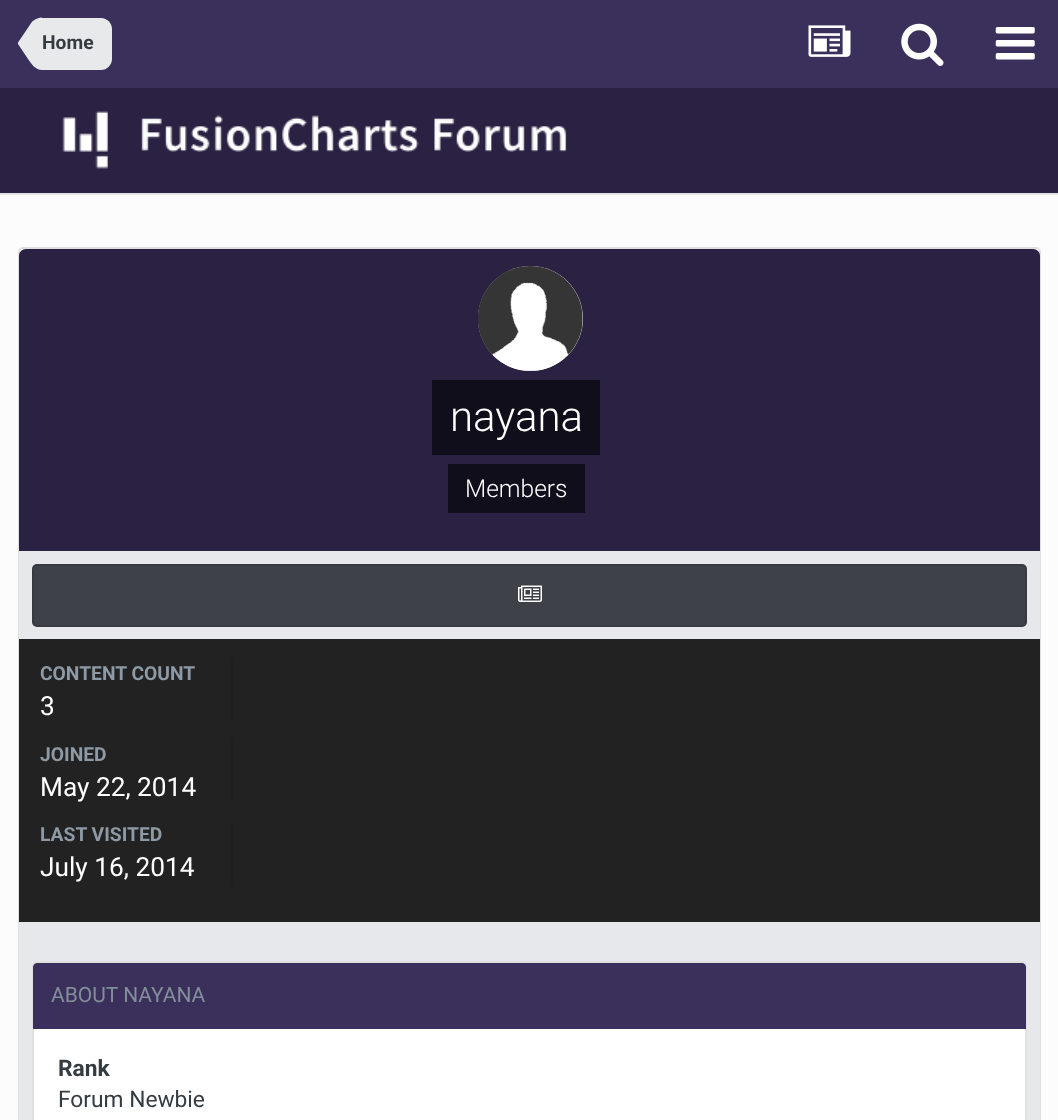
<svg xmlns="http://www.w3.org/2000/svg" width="1058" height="1120">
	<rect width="100%" height="100%" fill="#FCFCFC" />
	<rect x="0" y="193" width="1058" height="2" fill="#E3E3E3" />
	<rect x="0" y="0" width="1058" height="88" fill="#3B2F5C" />
	<path d="M42 18H101C107 18 112 23 112 29V59C112 65 107 70 101 70H42Z" fill="#E8E9EB" />
	<path d="M18 44H42V70C35.5 70 31.5 64 28 59ZM42 17.5V44H18V42.5L30.5 24C32 22 31.5 22 33 21C35.5 19 39 17.5 42 17.5Z" fill="#E8E9EB" />
	<text x="42" y="49" font-family="Roboto" font-size="19.25" font-weight="700" fill="#353C41">Home</text>
	<image x="808" y="25" width="43" height="32" href="assets/img1.png" />
	<image x="901" y="23" width="43" height="43" href="assets/img2.png" />
	<image x="995" y="27" width="40" height="33" href="assets/img3.png" />
	<rect x="0" y="88" width="1058" height="105" fill="#2B2243" />
	<image x="62" y="111" width="505" height="58" href="assets/img4.png" />
	<rect x="19" y="248" width="1021" height="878" rx="4" fill="#FFFFFF" stroke="#E0E0E0" stroke-width="2" />
	<path d="M26 249H1033C1037 249 1040 252 1040 256V551H19V256C19 252 22 249 26 249Z" fill="#2B2243" />
	<circle cx="530.5" cy="318.5" r="52.5" fill="#FFFFFF" />
	<image x="478" y="266" width="105" height="105" href="assets/img5.png" />
	<rect x="432" y="380" width="168" height="75" fill="#110E1B" />
	<text x="450" y="431" font-family="Roboto" font-size="42" font-weight="300" fill="#FFFFFF">nayana</text>
	<rect x="448" y="464" width="137" height="49" fill="#110E1B" />
	<text x="465" y="497" font-family="Roboto" font-size="24.5" font-weight="300" fill="#FFFFFF">Members</text>
	<rect x="19" y="551" width="1021" height="88" fill="#E6E8EB" />
	<rect x="32" y="564" width="995" height="63" rx="5" fill="#3E4148" />
	<rect x="33" y="565" width="993" height="61" rx="4" fill="none" stroke="#000000" stroke-opacity="0.1" stroke-width="2" />
	<image x="518" y="585" width="24" height="17" href="assets/img6.png" />
	<rect x="19" y="639" width="1021" height="283" fill="#222222" />
	<rect x="231" y="660" width="2" height="63" fill="#1F1F1F" />
	<text x="40" y="680" font-family="Roboto" font-size="19.25" font-weight="700" fill="#8D9AA6">CONTENT COUNT</text>
	<text x="40" y="715" font-family="Roboto" font-size="26.25" fill="#FFFFFF">3</text>
	<rect x="231" y="740" width="2" height="63" fill="#1F1F1F" />
	<text x="40" y="761" font-family="Roboto" font-size="19.25" font-weight="700" fill="#8D9AA6">JOINED</text>
	<text x="40" y="796" font-family="Roboto" font-size="26.25" fill="#FFFFFF">May 22, 2014</text>
	<rect x="231" y="821" width="2" height="63" fill="#1F1F1F" />
	<text x="40" y="841" font-family="Roboto" font-size="19.25" font-weight="700" fill="#8D9AA6">LAST VISITED</text>
	<text x="40" y="876" font-family="Roboto" font-size="26.25" fill="#FFFFFF">July 16, 2014</text>
	<rect x="19" y="922" width="1021" height="198" fill="#E6E8EB" />
	<rect x="33" y="962" width="993" height="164" rx="4" fill="#FFFFFF" stroke="#E0E0E0" stroke-width="2" />
	<path d="M37 963H1022C1024 963 1026 965 1026 967V1029H33V967C33 965 35 963 37 963Z" fill="#3B2F5C" />
	<text x="51" y="1002" font-family="Roboto" font-size="21" fill="#828E99">ABOUT NAYANA</text>
	<text x="58" y="1076" font-family="Roboto" font-size="22.75" font-weight="700" fill="#353C41">Rank</text>
	<text x="58" y="1107" font-family="Roboto" font-size="22.75" fill="#353C41">Forum Newbie</text>
</svg>
